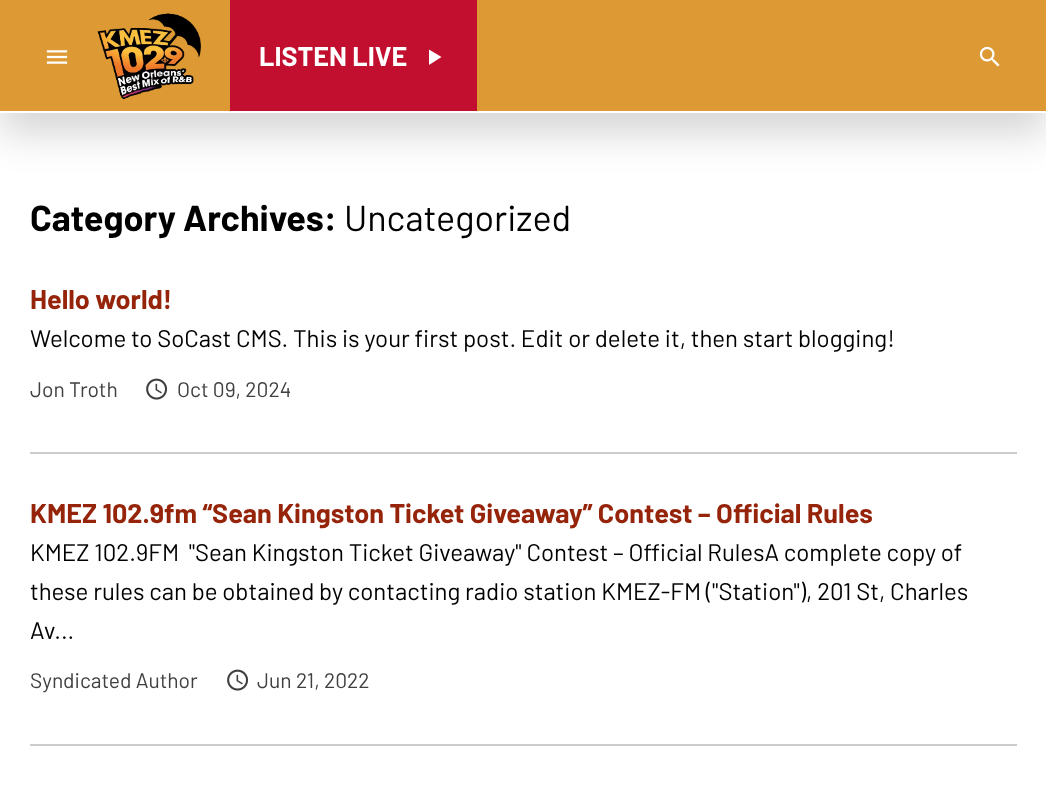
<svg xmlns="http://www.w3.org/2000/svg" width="1046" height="789">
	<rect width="100%" height="100%" fill="#FFFFFF" />
	<rect x="0" y="21" width="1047" height="113" fill="#000000" fill-opacity="0.16" filter="blur(19px)" />
	<rect x="0" y="0" width="1046" height="111" fill="#DD9934" />
	<rect x="0" y="111" width="1046" height="2" fill="#FFFFFF" />
	<image x="46" y="50" width="22" height="14" href="assets/img1.png" />
	<image x="97" y="13" width="104" height="86" href="assets/img2.png" />
	<rect x="230" y="0" width="247" height="111" fill="#C20F2F" />
	<text x="259" y="66" font-family="Barlow" font-size="27" font-weight="700" fill="#FFFFFF">LISTEN LIVE</text>
	<path d="M429 49.5V65L441.5 57Z" fill="#FFFFFF" />
	<image x="979" y="46" width="21" height="21" href="assets/img3.png" />
	<text x="30" y="231" font-family="Barlow" font-size="36" font-weight="700" fill="#000000">Category Archives:</text>
	<text x="344" y="231" font-family="Barlow" font-size="36" fill="#000000">Uncategorized</text>
	<text x="30" y="309" font-family="Barlow" font-size="27" font-weight="700" fill="#95240A">Hello world!</text>
	<text x="30" y="347" font-family="Barlow" font-size="24" fill="#000000">Welcome to SoCast CMS. This is your first post. Edit or delete it, then start blogging!</text>
	<text x="30" y="397" font-family="Barlow" font-size="21" fill="#404040">Jon Troth</text>
	<image x="146" y="378" width="22" height="22" href="assets/img4.png" />
	<text x="177" y="397" font-family="Barlow" font-size="21" fill="#404040">Oct 09, 2024</text>
	<rect x="30" y="452" width="987" height="2" fill="#CCCCCC" />
	<text x="30" y="523" font-family="Barlow" font-size="27" font-weight="700" fill="#95240A">KMEZ 102.9fm “Sean Kingston Ticket Giveaway” Contest – Official Rules</text>
	<g font-family="Barlow" font-size="24" fill="#000000">
		<text x="30" y="561" xml:space="preserve">KMEZ 102.9FM  "Sean Kingston Ticket Giveaway" Contest – Official RulesA complete copy of</text>
		<text x="30" y="600">these rules can be obtained by contacting radio station KMEZ-FM ("Station"), 201 St, Charles</text>
		<text x="30" y="639">Av...</text>
	</g>
	<text x="30" y="688" font-family="Barlow" font-size="21" fill="#404040">Syndicated Author</text>
	<image x="227" y="669" width="22" height="22" href="assets/img4.png" />
	<text x="257" y="688" font-family="Barlow" font-size="21" fill="#404040">Jun 21, 2022</text>
	<rect x="30" y="744" width="987" height="2" fill="#CCCCCC" />
</svg>
